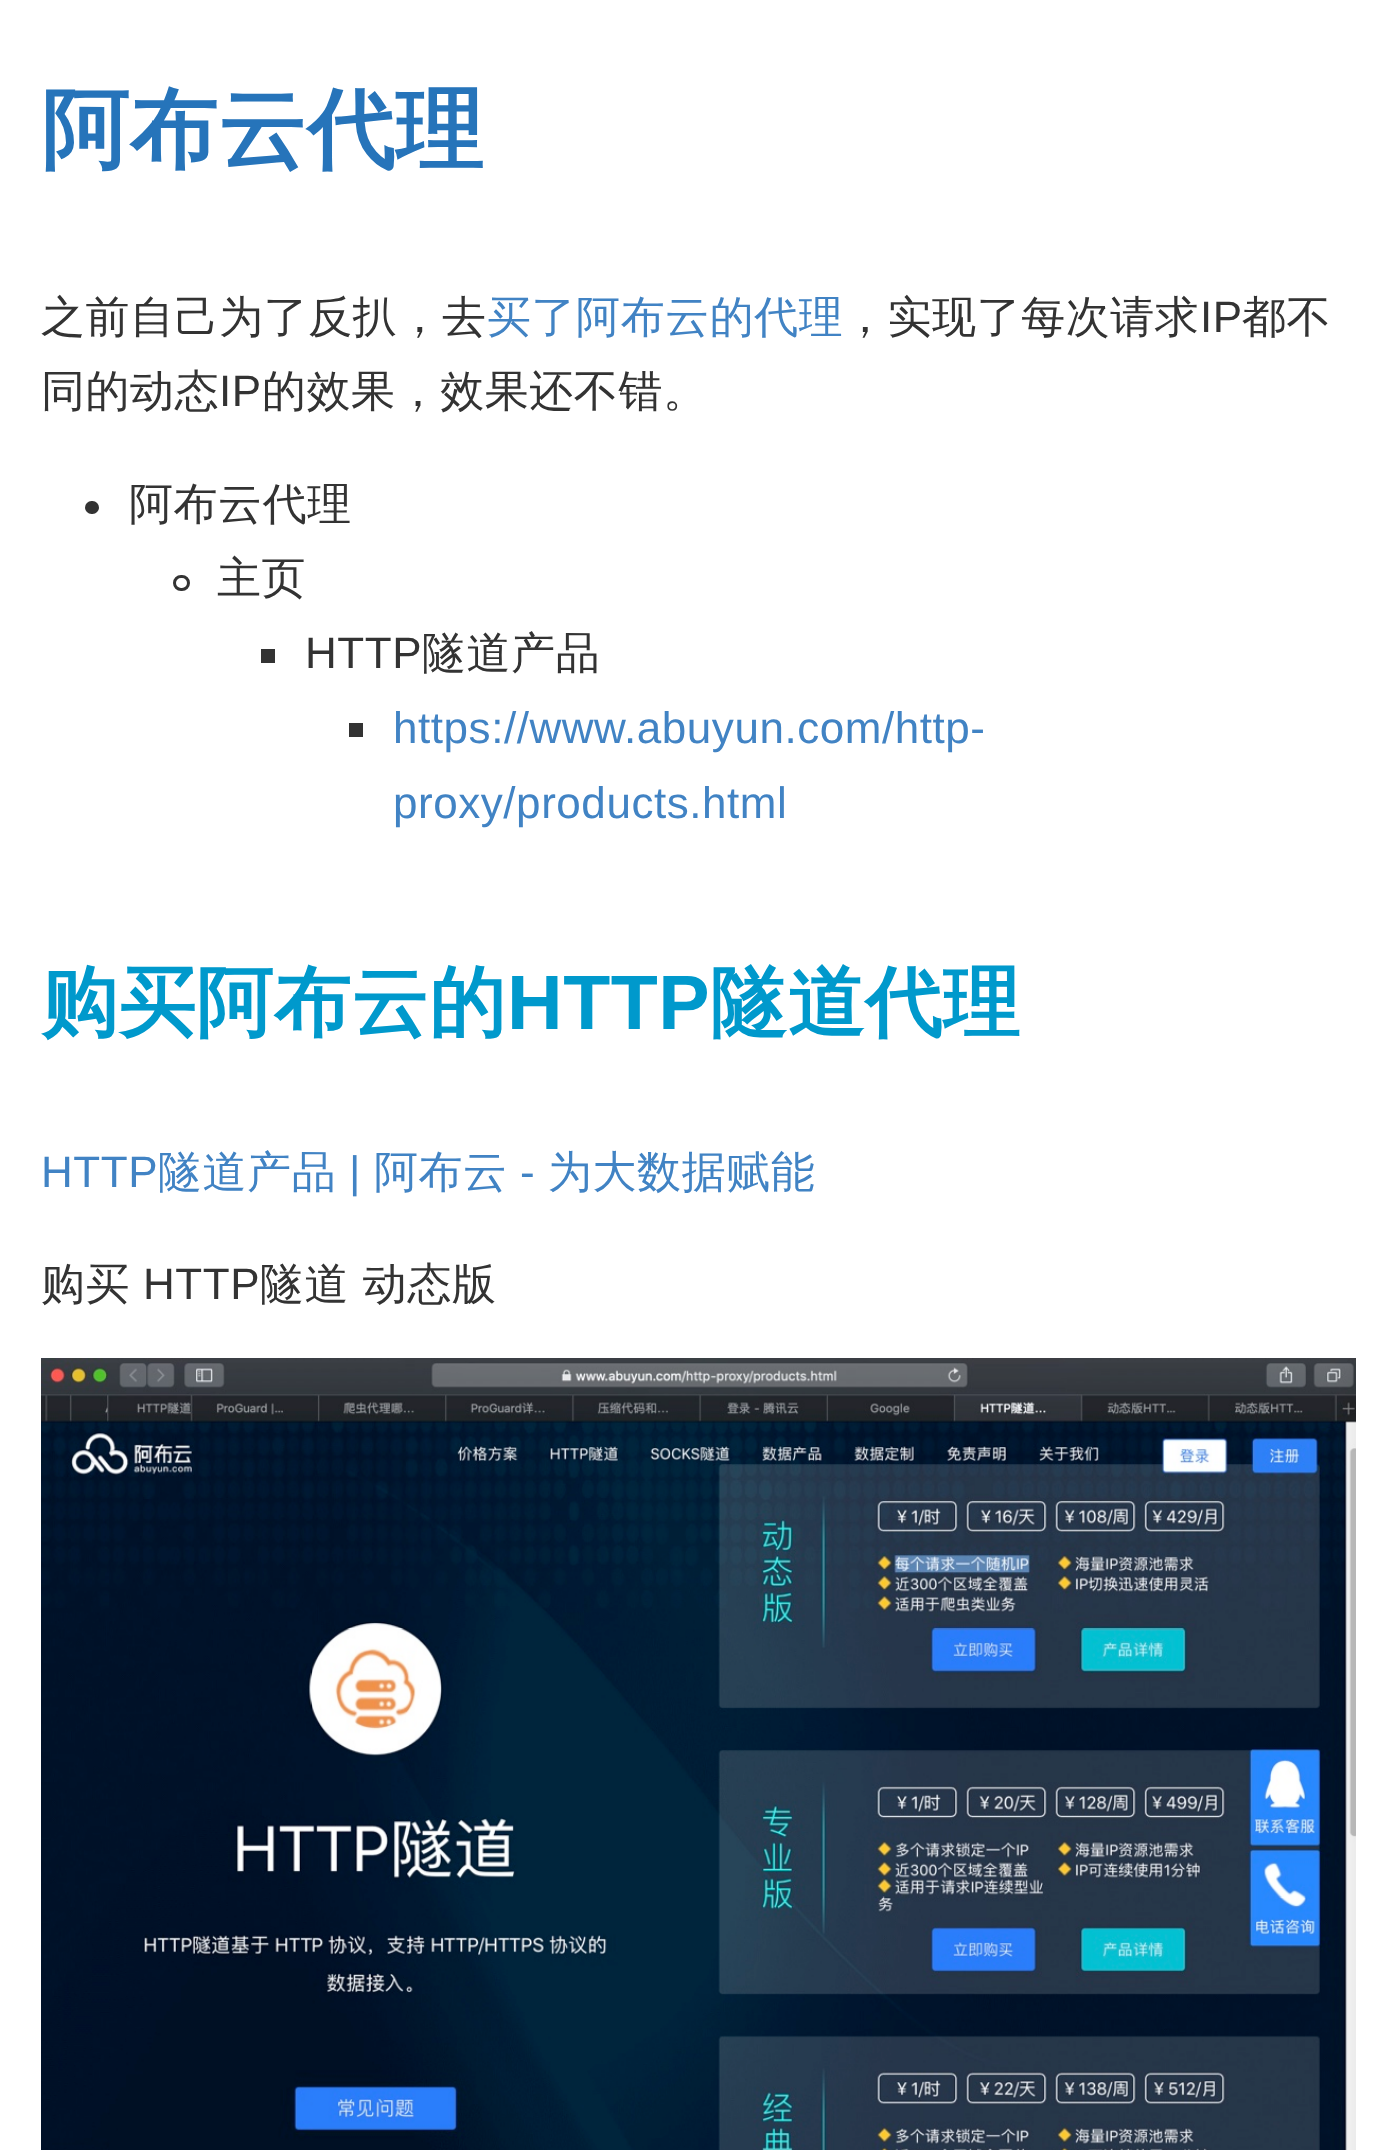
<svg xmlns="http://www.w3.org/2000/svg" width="1395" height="2150">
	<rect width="100%" height="100%" fill="#FFFFFF" />
	<text x="41" y="160" font-family="WenQuanYi Zen Hei" font-size="88" font-weight="700" letter-spacing="0.55" fill="#2674BA">阿布云代理</text>
	<text x="41" y="332" font-family="WenQuanYi Zen Hei" font-size="44" font-weight="500" letter-spacing="0.55" fill="#333333">之前自己为了反扒，去</text>
	<text x="487" y="332" font-family="WenQuanYi Zen Hei" font-size="44" font-weight="500" letter-spacing="0.55" fill="#4183C4">买了阿布云的代理</text>
	<text x="843" y="332" font-family="WenQuanYi Zen Hei" font-size="44" font-weight="500" letter-spacing="0.55" fill="#333333">，实现了每次请求</text>
	<text x="1200" y="332" font-family="Liberation Sans" font-size="44" letter-spacing="0.55" fill="#333333">IP</text>
	<g font-family="WenQuanYi Zen Hei" font-size="44" font-weight="500" letter-spacing="0.55" fill="#333333">
		<text x="1242" y="332">都不</text>
		<text x="41" y="406">同的动态</text>
	</g>
	<text x="219" y="406" font-family="Liberation Sans" font-size="44" letter-spacing="0.55" fill="#333333">IP</text>
	<text x="262" y="406" font-family="WenQuanYi Zen Hei" font-size="44" font-weight="500" letter-spacing="0.55" fill="#333333">的效果，效果还不错。</text>
	<rect x="85" y="501" width="14" height="13" rx="6.5" fill="#333333" />
	<text x="129" y="519" font-family="WenQuanYi Zen Hei" font-size="44" font-weight="500" letter-spacing="0.55" fill="#333333">阿布云代理</text>
	<rect x="174.5" y="576.5" width="14" height="13" rx="6.5" fill="none" stroke="#333333" stroke-width="3" />
	<text x="217" y="593" font-family="WenQuanYi Zen Hei" font-size="44" font-weight="500" letter-spacing="0.55" fill="#333333">主页</text>
	<rect x="261" y="649" width="14" height="14" fill="#333333" />
	<text x="305" y="668" font-family="Liberation Sans" font-size="44" letter-spacing="0.55" fill="#333333">HTTP</text>
	<text x="422" y="668" font-family="WenQuanYi Zen Hei" font-size="44" font-weight="500" letter-spacing="0.55" fill="#333333">隧道产品</text>
	<rect x="349" y="723" width="14" height="14" fill="#333333" />
	<g font-family="Liberation Sans" font-size="44" letter-spacing="0.55" fill="#4183C4">
		<text x="393" y="743">https://www.abuyun.com/http-</text>
		<text x="393" y="818">proxy/products.html</text>
	</g>
	<text x="41" y="1029" font-family="WenQuanYi Zen Hei" font-size="77" font-weight="700" letter-spacing="0.55" fill="#0099CC">购买阿布云的</text>
	<text x="507" y="1029" font-family="Liberation Sans" font-size="77" font-weight="700" letter-spacing="0.55" fill="#0099CC">HTTP</text>
	<text x="710" y="1029" font-family="WenQuanYi Zen Hei" font-size="77" font-weight="700" letter-spacing="0.55" fill="#0099CC">隧道代理</text>
	<text x="41" y="1187" font-family="Liberation Sans" font-size="44" letter-spacing="0.55" fill="#4183C4">HTTP</text>
	<text x="158" y="1187" font-family="WenQuanYi Zen Hei" font-size="44" font-weight="500" letter-spacing="0.55" fill="#4183C4">隧道产品</text>
	<text x="349" y="1187" font-family="Liberation Sans" font-size="44" letter-spacing="0.55" fill="#4183C4">|</text>
	<text x="374" y="1187" font-family="WenQuanYi Zen Hei" font-size="44" font-weight="500" letter-spacing="0.55" fill="#4183C4">阿布云</text>
	<text x="520" y="1187" font-family="Liberation Sans" font-size="44" letter-spacing="0.55" fill="#4183C4">-</text>
	<text x="548" y="1187" font-family="WenQuanYi Zen Hei" font-size="44" font-weight="500" letter-spacing="0.55" fill="#4183C4">为大数据赋能</text>
	<text x="41" y="1299" font-family="WenQuanYi Zen Hei" font-size="44" font-weight="500" letter-spacing="0.55" fill="#333333">购买</text>
	<text x="143" y="1299" font-family="Liberation Sans" font-size="44" letter-spacing="0.55" fill="#333333">HTTP</text>
	<text x="260" y="1299" font-family="WenQuanYi Zen Hei" font-size="44" font-weight="500" letter-spacing="0.55" fill="#333333">隧道 动态版</text>
	<image x="41" y="1358" width="1315" height="792" href="assets/img1.png" />
</svg>
